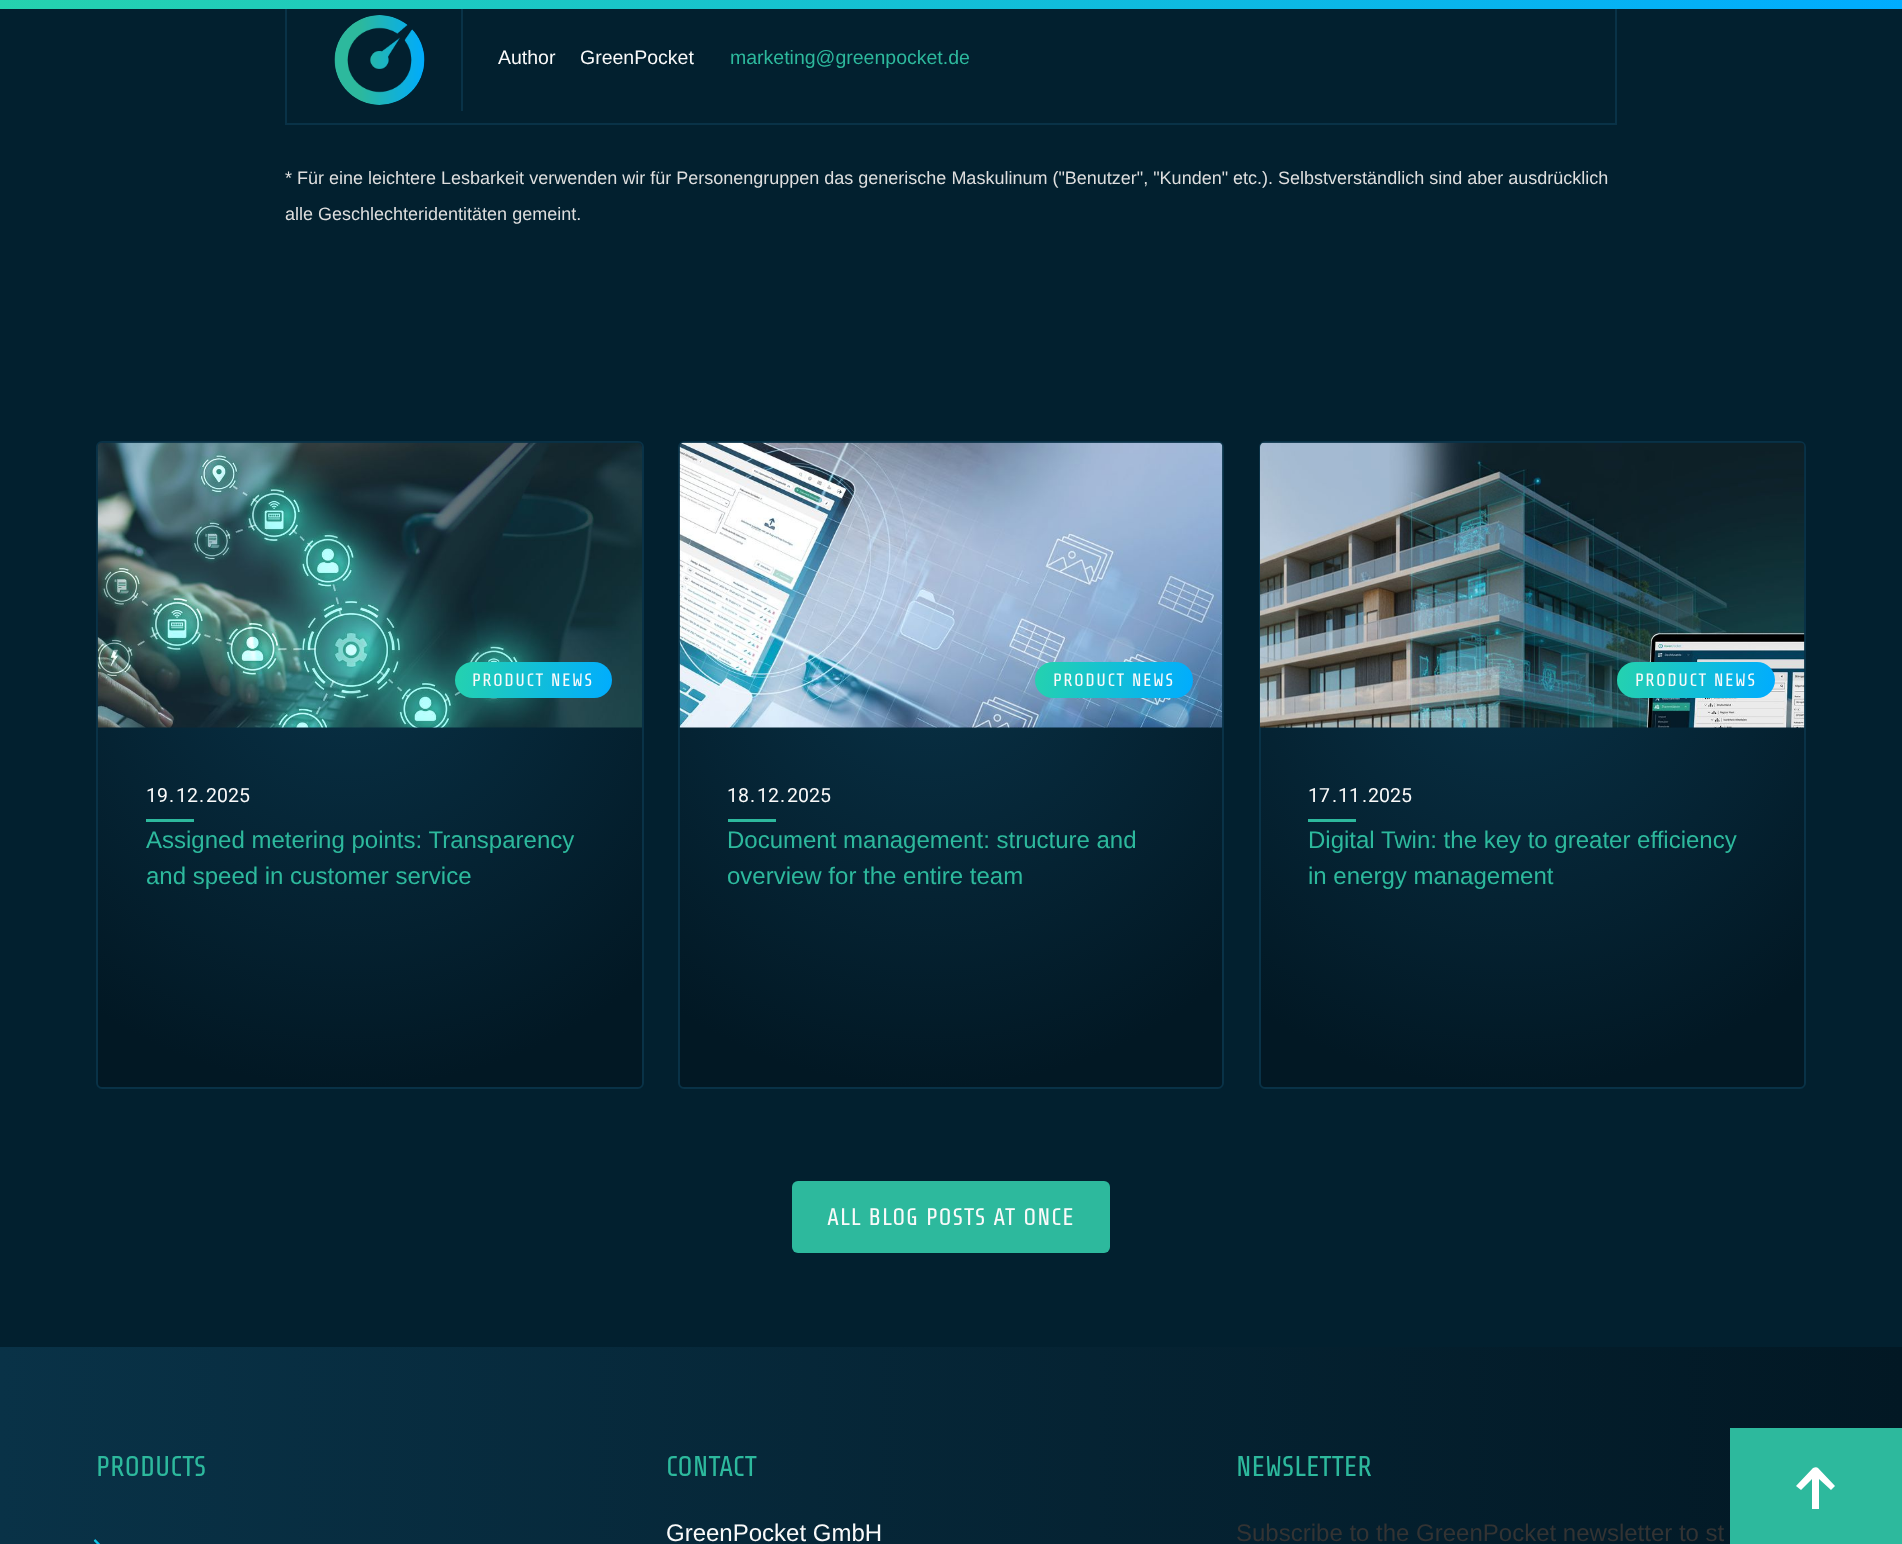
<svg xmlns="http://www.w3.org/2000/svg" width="1902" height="1544">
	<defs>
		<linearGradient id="g1" gradientUnits="userSpaceOnUse" x1="1792" y1="311" x2="110" y2="-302"><stop offset="0" stop-color="#00ACFF" /><stop offset="1" stop-color="#25D2AE" /></linearGradient>
		<radialGradient id="g2" gradientUnits="userSpaceOnUse" cx="348" cy="636" r="452"><stop offset="0" stop-color="#093247" /><stop offset="1" stop-color="#021824" /></radialGradient>
		<linearGradient id="g3" gradientUnits="userSpaceOnUse" x1="613" y1="694" x2="454" y2="665"><stop offset="0" stop-color="#00ACFF" /><stop offset="1" stop-color="#25D2AE" /></linearGradient>
		<clipPath id="clip1"><rect x="678" y="441" width="546" height="648" rx="6" /></clipPath>
		<radialGradient id="g4" gradientUnits="userSpaceOnUse" cx="929" cy="636" r="452"><stop offset="0" stop-color="#093247" /><stop offset="1" stop-color="#021824" /></radialGradient>
		<linearGradient id="g5" gradientUnits="userSpaceOnUse" x1="1193" y1="694" x2="1034" y2="665"><stop offset="0" stop-color="#00ACFF" /><stop offset="1" stop-color="#25D2AE" /></linearGradient>
		<clipPath id="clip2"><rect x="1259" y="441" width="547" height="648" rx="6" /></clipPath>
		<radialGradient id="g6" gradientUnits="userSpaceOnUse" cx="1510" cy="636" r="452"><stop offset="0" stop-color="#093247" /><stop offset="1" stop-color="#021824" /></radialGradient>
		<linearGradient id="g7" gradientUnits="userSpaceOnUse" x1="1775" y1="694" x2="1616" y2="665"><stop offset="0" stop-color="#00ACFF" /><stop offset="1" stop-color="#25D2AE" /></linearGradient>
		<linearGradient id="g8" gradientUnits="userSpaceOnUse" x1="0" y1="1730" x2="1902" y2="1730"><stop offset="0" stop-color="#093247" /><stop offset="1" stop-color="#021824" /></linearGradient>
	</defs>
	<rect width="100%" height="100%" fill="#FFFFFF" />
	<rect x="0" y="9" width="1902" height="1338" fill="#02202F" />
	<rect x="286" y="-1" width="1330" height="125" fill="none" stroke="#093247" stroke-width="2" />
	<rect x="461" y="6" width="2" height="105" fill="#093247" />
	<rect x="0" y="0" width="1902" height="9" fill="url(#g1)" />
	<image x="334" y="15" width="91" height="90" href="assets/img1.png" />
	<g font-family="Liberation Sans" font-size="19.5" fill="#FAFAFA">
		<text x="498" y="64">Author</text>
		<text x="580" y="64">GreenPocket</text>
	</g>
	<text x="730" y="64" font-family="Liberation Sans" font-size="19.5" fill="#2DB99D">marketing@greenpocket.de</text>
	<g font-family="Liberation Sans" font-size="18" fill="#DEDEDE">
		<text x="285" y="184">* Für eine leichtere Lesbarkeit verwenden wir für Personengruppen das generische Maskulinum ("Benutzer", "Kunden" etc.). Selbstverständlich sind aber ausdrücklich</text>
		<text x="285" y="220">alle Geschlechteridentitäten gemeint.</text>
	</g>
	<rect x="98" y="443" width="544" height="645" fill="url(#g2)" />
	<rect x="97" y="442" width="546" height="646" rx="5" fill="none" stroke="#093247" stroke-width="2" />
	<image x="97" y="442" width="545" height="286" href="assets/img2.png" />
	<rect x="455" y="662" width="157" height="36" rx="18" fill="url(#g3)" />
	<text x="472" y="686" font-family="'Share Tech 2'" font-size="18" letter-spacing="1.5" fill="#FAFAFA">PRODUCT NEWS</text>
	<g font-family="Roboto" font-size="19.5" fill="#FAFAFA">
		<text x="146" y="802">19</text>
		<text x="169" y="802">.</text>
		<text x="176" y="802">12</text>
		<text x="199" y="802">.</text>
		<text x="206" y="802">2025</text>
	</g>
	<rect x="146" y="819" width="48" height="3" fill="#2DB99D" />
	<g font-family="Liberation Sans" font-size="24" fill="#2DB99D">
		<text x="146" y="848">Assigned metering points: Transparency</text>
		<text x="146" y="884">and speed in customer service</text>
	</g>
	<g clip-path="url(#clip1)">
		<rect x="680" y="443" width="543" height="645" fill="url(#g4)" />
	</g>
	<rect x="679" y="442" width="544" height="646" rx="5" fill="none" stroke="#093247" stroke-width="2" />
	<image x="679" y="442" width="544" height="286" href="assets/img3.png" />
	<rect x="1035" y="662" width="158" height="36" rx="18" fill="url(#g5)" />
	<text x="1053" y="686" font-family="'Share Tech 2'" font-size="18" letter-spacing="1.5" fill="#FAFAFA">PRODUCT NEWS</text>
	<g font-family="Roboto" font-size="19.5" fill="#FAFAFA">
		<text x="727" y="802">18</text>
		<text x="750" y="802">.</text>
		<text x="757" y="802">12</text>
		<text x="780" y="802">.</text>
		<text x="787" y="802">2025</text>
	</g>
	<rect x="728" y="819" width="48" height="3" fill="#2DB99D" />
	<g font-family="Liberation Sans" font-size="24" fill="#2DB99D">
		<text x="727" y="848">Document management: structure and</text>
		<text x="727" y="884">overview for the entire team</text>
	</g>
	<g clip-path="url(#clip2)">
		<rect x="1260" y="443" width="545" height="645" fill="url(#g6)" />
	</g>
	<rect x="1260" y="442" width="545" height="646" rx="5" fill="none" stroke="#093247" stroke-width="2" />
	<image x="1260" y="442" width="545" height="286" href="assets/img4.png" />
	<rect x="1617" y="662" width="158" height="36" rx="18" fill="url(#g7)" />
	<text x="1635" y="686" font-family="'Share Tech 2'" font-size="18" letter-spacing="1.5" fill="#FAFAFA">PRODUCT NEWS</text>
	<g font-family="Roboto" font-size="19.5" fill="#FAFAFA">
		<text x="1308" y="802">17</text>
		<text x="1332" y="802">.</text>
		<text x="1338" y="802">11</text>
		<text x="1362" y="802">.</text>
		<text x="1368" y="802">2025</text>
	</g>
	<rect x="1308" y="819" width="48" height="3" fill="#2DB99D" />
	<g font-family="Liberation Sans" font-size="24" fill="#2DB99D">
		<text x="1308" y="848">Digital Twin: the key to greater efficiency</text>
		<text x="1308" y="884">in energy management</text>
	</g>
	<rect x="792" y="1181" width="318" height="72" rx="6" fill="#2DB99D" />
	<text x="827" y="1225" font-family="Share Tech" font-size="24" letter-spacing="0.9" fill="#FAFAFA">ALL BLOG POSTS AT ONCE</text>
	<rect x="0" y="1347" width="1902" height="197" fill="url(#g8)" />
	<text x="96" y="1476" font-family="Share Tech" font-size="28.5" fill="#2DB99D">PRODUCTS</text>
	<image x="93" y="1539" width="7" height="5" href="assets/img5.png" />
	<text x="666" y="1476" font-family="Share Tech" font-size="28.5" fill="#2DB99D">CONTACT</text>
	<text x="666" y="1541" font-family="Liberation Sans" font-size="24" fill="#FAFAFA">GreenPocket GmbH</text>
	<text x="1236" y="1476" font-family="Share Tech" font-size="28.5" fill="#2DB99D">NEWSLETTER</text>
	<text x="1236" y="1541" font-family="Liberation Sans" font-size="24" fill="#333333">Subscribe to the GreenPocket newsletter to st</text>
	<rect x="1730" y="1428" width="172" height="116" fill="#2DB99D" />
	<path d="M1812 1479V1509H1819V1479L1831 1490L1835 1486L1818 1468C1817 1467 1815 1467 1813 1468L1796 1486L1801 1490Z" fill="#FFFFFF" />
</svg>
